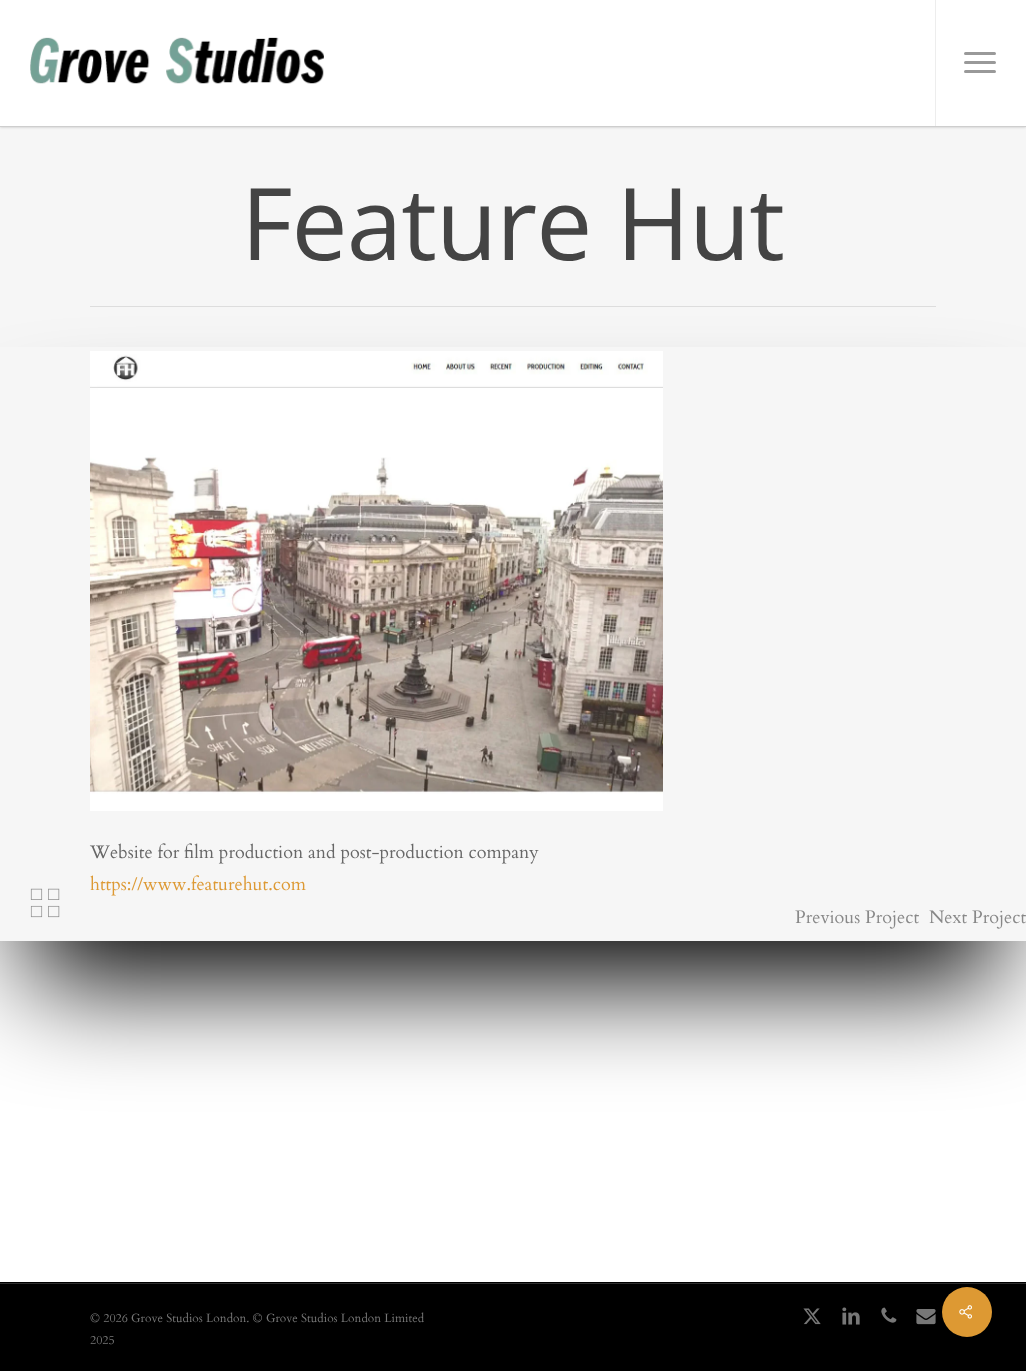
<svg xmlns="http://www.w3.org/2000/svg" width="1026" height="1371">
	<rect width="100%" height="100%" fill="#FFFFFF" />
	<rect x="0" y="127" width="1026" height="220" fill="#F6F6F6" />
	<rect x="0" y="0" width="1026" height="127" fill="#000000" fill-opacity="0.22" filter="blur(1.5px)" />
	<rect x="0" y="0" width="1026" height="126" fill="#FFFFFF" />
	<rect x="0" y="126" width="1026" height="1" fill="#CECECE" />
	<image x="30" y="37" width="294" height="47" href="assets/img1.png" />
	<rect x="935" y="0" width="1" height="126" fill="#EDEDED" />
	<rect x="964" y="52" width="32" height="3" rx="1.5" fill="#999999" />
	<rect x="964" y="70" width="32" height="3" rx="1.5" fill="#999999" />
	<rect x="964" y="61" width="32" height="3" rx="1.5" fill="#999999" />
	<rect x="90" y="306" width="846" height="1" fill="#DDDDDD" />
	<text x="241" y="260" font-family="Open Sans" font-size="100" letter-spacing="-1" fill="#444444">Feature Hut</text>
	<rect x="30" y="447" width="966" height="534" fill="#000000" filter="blur(55px)" />
	<rect x="0" y="347" width="1026" height="594" fill="#F6F6F6" />
	<image x="90" y="351" width="573" height="460" href="assets/img2.png" />
	<text x="90" y="858" font-family="Cardo" font-size="18" fill="#676767">Website for film production and post-production company</text>
	<text x="90" y="890" font-family="Cardo" font-size="18" fill="#DD9933">https://www.featurehut.com</text>
	<image x="30" y="888" width="30" height="30" href="assets/img3.png" />
	<g font-family="Cardo" font-size="18" fill="#888888">
		<text x="795" y="923">Previous Project</text>
		<text x="929" y="923">Next Project</text>
	</g>
	<rect x="0" y="1282" width="1026" height="89" fill="#000000" />
	<rect x="0" y="1283" width="1026" height="1" fill="#2E2E2E" />
	<g font-family="Cardo" font-size="12" fill="#777777">
		<text x="90" y="1322">© 2026 Grove Studios London. © Grove Studios London Limited</text>
		<text x="90" y="1344">2025</text>
	</g>
	<image x="803" y="1308" width="18" height="17" href="assets/img4.png" />
	<image x="842" y="1307" width="18" height="18" href="assets/img5.png" />
	<image x="881" y="1307" width="16" height="16" href="assets/img6.png" />
	<image x="916" y="1309" width="20" height="16" href="assets/img7.png" />
	<circle cx="967" cy="1312" r="25" fill="#DD9933" />
	<image x="959" y="1305" width="13" height="14" href="assets/img8.png" />
</svg>
